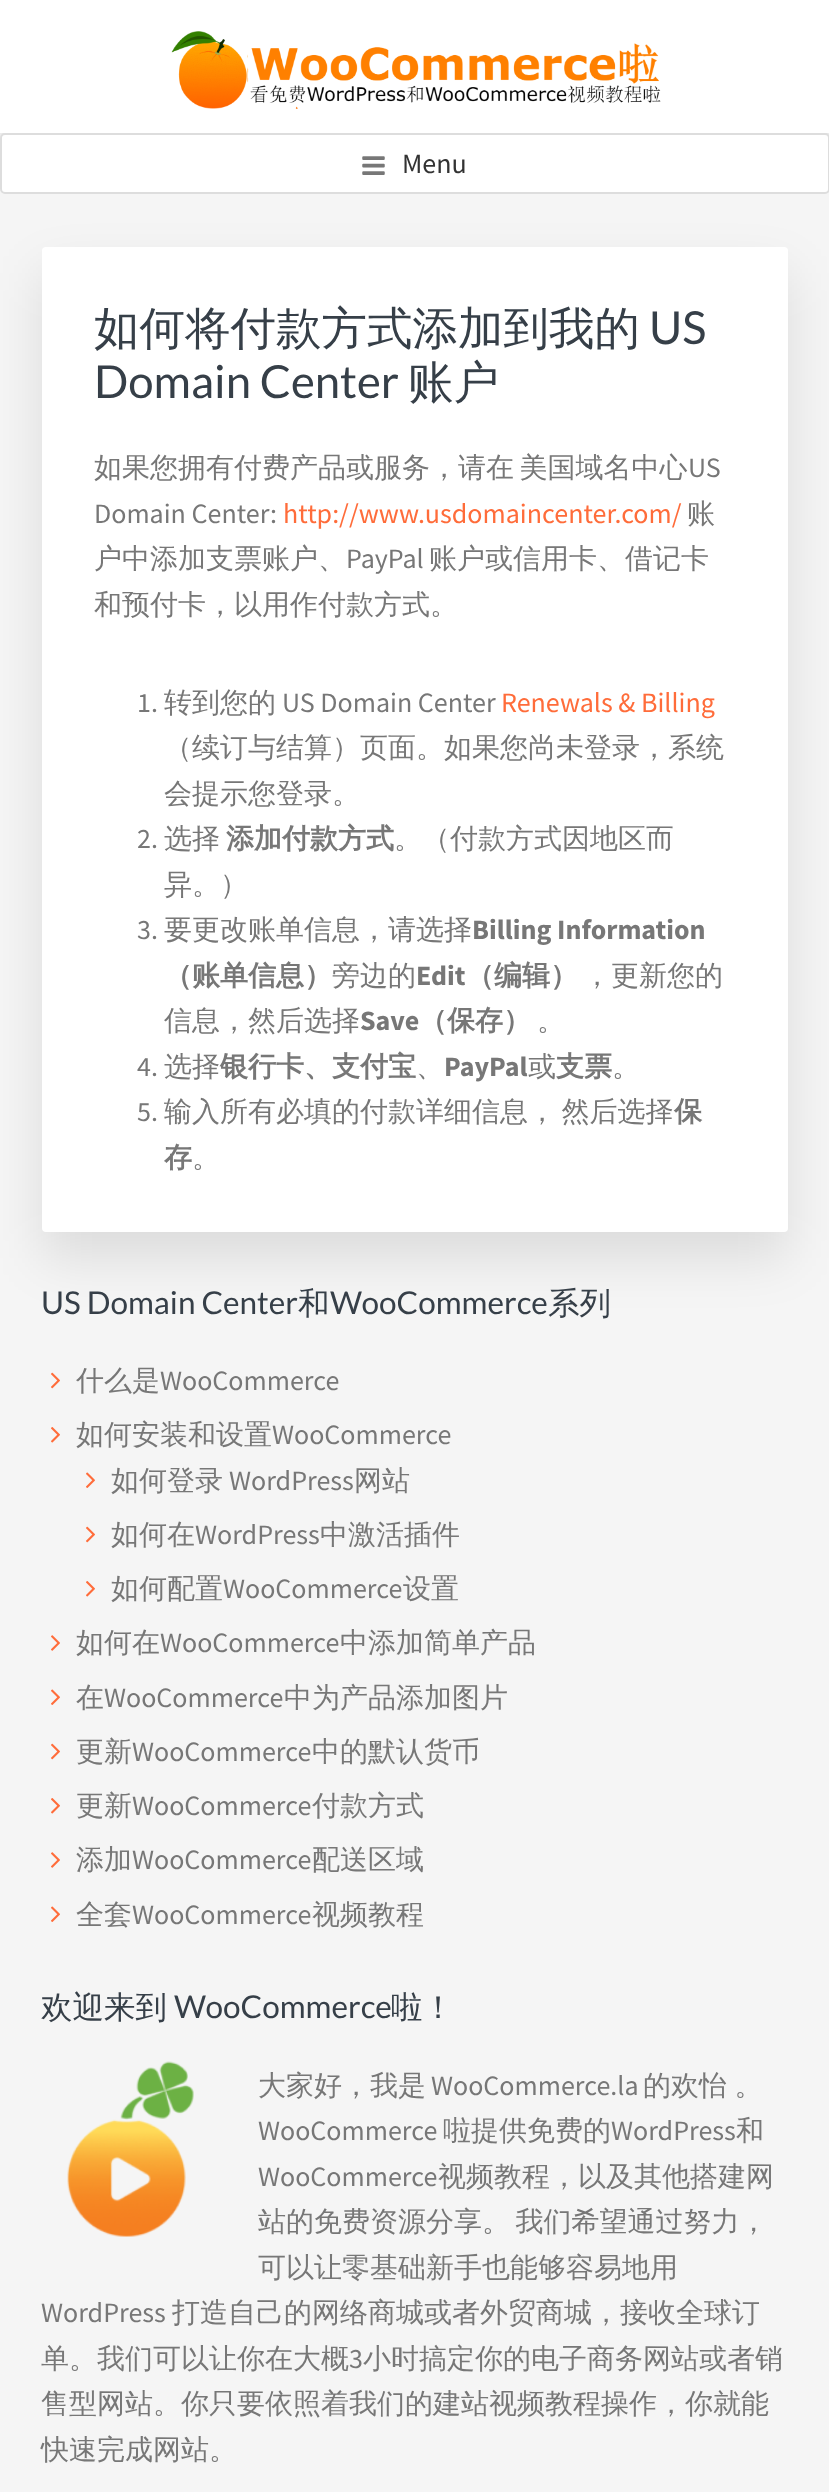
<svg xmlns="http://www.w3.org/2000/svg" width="829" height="2492">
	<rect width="100%" height="100%" fill="#F5F5F5" />
	<rect x="0" y="4" width="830" height="133" fill="#000000" fill-opacity="0.1" filter="blur(7px)" />
	<rect x="0" y="0" width="829" height="133" fill="#FFFFFF" />
	<image x="171" y="31" width="490" height="78" href="assets/img1.png" />
	<rect x="1" y="134" width="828" height="59" rx="4" fill="#FFFFFF" stroke="#DDDDDD" stroke-width="2" />
	<image x="362" y="156" width="23" height="19" href="assets/img2.png" />
	<text x="402" y="173" font-family="Source Sans Pro" font-size="28" fill="#333333">Menu</text>
	<rect x="42" y="273" width="746" height="985" rx="4" fill="#000000" fill-opacity="0.1" filter="blur(26px)" />
	<rect x="42" y="247" width="746" height="985" rx="4" fill="#FFFFFF" />
	<text x="94" y="344" font-family="WenQuanYi Zen Hei" font-size="45.5" font-weight="500" fill="#363F48">如何将付款方式添加到我的</text>
	<g font-family="Lato" font-size="45.5" fill="#363F48">
		<text x="649" y="344">US</text>
		<text x="94" y="398">Domain Center</text>
	</g>
	<text x="408" y="398" font-family="WenQuanYi Zen Hei" font-size="45.5" font-weight="500" fill="#363F48">账户</text>
	<text x="94" y="477" word-spacing="-3" font-family="WenQuanYi Zen Hei" font-size="28" font-weight="500" fill="#777777">如果您拥有付费产品或服务，请在 美国域名中心</text>
	<g font-family="Source Sans Pro" font-size="28" fill="#777777">
		<text x="688" y="477">US</text>
		<text x="94" y="523">Domain Center:</text>
	</g>
	<text x="283" y="523" font-family="Source Sans Pro" font-size="28" fill="#FF6C3A">http://www.usdomaincenter.com/</text>
	<g font-family="WenQuanYi Zen Hei" font-size="28" font-weight="500" fill="#777777">
		<text x="687" y="523">账</text>
		<text x="94" y="568">户中添加支票账户、</text>
	</g>
	<text x="346" y="568" font-family="Source Sans Pro" font-size="28" fill="#777777">PayPal</text>
	<g font-family="WenQuanYi Zen Hei" font-size="28" font-weight="500" fill="#777777">
		<text x="429" y="568">账户或信用卡、借记卡</text>
		<text x="94" y="614">和预付卡，以用作付款方式。</text>
	</g>
	<text x="137" y="712" font-family="Source Sans Pro" font-size="28" fill="#777777">1.</text>
	<text x="164" y="712" font-family="WenQuanYi Zen Hei" font-size="28" font-weight="500" fill="#777777">转到您的</text>
	<text x="282" y="712" font-family="Source Sans Pro" font-size="28" fill="#777777">US Domain Center</text>
	<text x="501" y="712" font-family="Source Sans Pro" font-size="28" fill="#FF6C3A">Renewals &amp; Billing</text>
	<g font-family="WenQuanYi Zen Hei" font-size="28" font-weight="500" fill="#777777">
		<text x="164" y="757">（续订与结算）页面。如果您尚未登录，系统</text>
		<text x="164" y="803">会提示您登录。</text>
	</g>
	<text x="137" y="848" font-family="Source Sans Pro" font-size="28" fill="#777777">2.</text>
	<text x="164" y="848" font-family="WenQuanYi Zen Hei" font-size="28" font-weight="500" fill="#777777">选择</text>
	<text x="226" y="848" font-family="WenQuanYi Zen Hei" font-size="28" font-weight="700" fill="#777777">添加付款方式</text>
	<g font-family="WenQuanYi Zen Hei" font-size="28" font-weight="500" fill="#777777">
		<text x="394" y="848">。（付款方式因地区而</text>
		<text x="164" y="894">异。）</text>
	</g>
	<text x="137" y="939" font-family="Source Sans Pro" font-size="28" fill="#777777">3.</text>
	<text x="164" y="939" font-family="WenQuanYi Zen Hei" font-size="28" font-weight="500" fill="#777777">要更改账单信息，请选择</text>
	<text x="472" y="939" font-family="Source Sans Pro" font-size="28" font-weight="700" fill="#777777">Billing Information</text>
	<text x="164" y="985" font-family="WenQuanYi Zen Hei" font-size="28" font-weight="700" fill="#777777">（账单信息）</text>
	<text x="332" y="985" font-family="WenQuanYi Zen Hei" font-size="28" font-weight="500" fill="#777777">旁边的</text>
	<text x="416" y="985" font-family="Source Sans Pro" font-size="28" font-weight="700" fill="#777777">Edit</text>
	<text x="466" y="985" font-family="WenQuanYi Zen Hei" font-size="28" font-weight="700" fill="#777777">（编辑）</text>
	<g font-family="WenQuanYi Zen Hei" font-size="28" font-weight="500" fill="#777777">
		<text x="583" y="985">，更新您的</text>
		<text x="164" y="1030">信息，然后选择</text>
	</g>
	<text x="360" y="1030" font-family="Source Sans Pro" font-size="28" font-weight="700" fill="#777777">Save</text>
	<text x="419" y="1030" font-family="WenQuanYi Zen Hei" font-size="28" font-weight="700" fill="#777777">（保存）</text>
	<text x="537" y="1030" font-family="WenQuanYi Zen Hei" font-size="28" font-weight="500" fill="#777777">。</text>
	<text x="137" y="1076" font-family="Source Sans Pro" font-size="28" fill="#777777">4.</text>
	<text x="164" y="1076" font-family="WenQuanYi Zen Hei" font-size="28" font-weight="500" fill="#777777">选择</text>
	<text x="220" y="1076" font-family="WenQuanYi Zen Hei" font-size="28" font-weight="700" fill="#777777">银行卡、支付宝</text>
	<text x="416" y="1076" font-family="WenQuanYi Zen Hei" font-size="28" font-weight="500" fill="#777777">、</text>
	<text x="444" y="1076" font-family="Source Sans Pro" font-size="28" font-weight="700" fill="#777777">PayPal</text>
	<text x="528" y="1076" font-family="WenQuanYi Zen Hei" font-size="28" font-weight="500" fill="#777777">或</text>
	<text x="556" y="1076" font-family="WenQuanYi Zen Hei" font-size="28" font-weight="700" fill="#777777">支票</text>
	<text x="612" y="1076" font-family="WenQuanYi Zen Hei" font-size="28" font-weight="500" fill="#777777">。</text>
	<text x="137" y="1121" font-family="Source Sans Pro" font-size="28" fill="#777777">5.</text>
	<text x="164" y="1121" word-spacing="-3" font-family="WenQuanYi Zen Hei" font-size="28" font-weight="500" fill="#777777">输入所有必填的付款详细信息， 然后选择</text>
	<g font-family="WenQuanYi Zen Hei" font-size="28" font-weight="700" fill="#777777">
		<text x="674" y="1121">保</text>
		<text x="164" y="1167">存</text>
	</g>
	<text x="192" y="1167" font-family="WenQuanYi Zen Hei" font-size="28" font-weight="500" fill="#777777">。</text>
	<text x="41" y="1314" font-family="Lato" font-size="31.5" fill="#363F48">US Domain Center</text>
	<text x="298" y="1314" font-family="WenQuanYi Zen Hei" font-size="31.5" font-weight="500" fill="#363F48">和</text>
	<text x="330" y="1314" font-family="Lato" font-size="31.5" fill="#363F48">WooCommerce</text>
	<text x="548" y="1314" font-family="WenQuanYi Zen Hei" font-size="31.5" font-weight="500" fill="#363F48">系列</text>
	<image x="51" y="1372" width="9" height="17" href="assets/img3.png" />
	<text x="76" y="1390" font-family="WenQuanYi Zen Hei" font-size="28" font-weight="500" fill="#777777">什么是</text>
	<text x="160" y="1390" font-family="Source Sans Pro" font-size="28" fill="#777777">WooCommerce</text>
	<image x="51" y="1427" width="9" height="16" href="assets/img4.png" />
	<text x="76" y="1444" font-family="WenQuanYi Zen Hei" font-size="28" font-weight="500" fill="#777777">如何安装和设置</text>
	<text x="272" y="1444" font-family="Source Sans Pro" font-size="28" fill="#777777">WooCommerce</text>
	<image x="86" y="1472" width="9" height="16" href="assets/img5.png" />
	<text x="111" y="1490" font-family="WenQuanYi Zen Hei" font-size="28" font-weight="500" fill="#777777">如何登录</text>
	<text x="229" y="1490" font-family="Source Sans Pro" font-size="28" fill="#777777">WordPress</text>
	<text x="354" y="1490" font-family="WenQuanYi Zen Hei" font-size="28" font-weight="500" fill="#777777">网站</text>
	<image x="86" y="1526" width="9" height="17" href="assets/img3.png" />
	<text x="111" y="1544" font-family="WenQuanYi Zen Hei" font-size="28" font-weight="500" fill="#777777">如何在</text>
	<text x="195" y="1544" font-family="Source Sans Pro" font-size="28" fill="#777777">WordPress</text>
	<text x="320" y="1544" font-family="WenQuanYi Zen Hei" font-size="28" font-weight="500" fill="#777777">中激活插件</text>
	<image x="86" y="1581" width="9" height="16" href="assets/img4.png" />
	<text x="111" y="1598" font-family="WenQuanYi Zen Hei" font-size="28" font-weight="500" fill="#777777">如何配置</text>
	<text x="223" y="1598" font-family="Source Sans Pro" font-size="28" fill="#777777">WooCommerce</text>
	<text x="403" y="1598" font-family="WenQuanYi Zen Hei" font-size="28" font-weight="500" fill="#777777">设置</text>
	<image x="51" y="1635" width="9" height="16" href="assets/img6.png" />
	<text x="76" y="1652" font-family="WenQuanYi Zen Hei" font-size="28" font-weight="500" fill="#777777">如何在</text>
	<text x="160" y="1652" font-family="Source Sans Pro" font-size="28" fill="#777777">WooCommerce</text>
	<text x="340" y="1652" font-family="WenQuanYi Zen Hei" font-size="28" font-weight="500" fill="#777777">中添加简单产品</text>
	<image x="51" y="1689" width="9" height="16" href="assets/img5.png" />
	<text x="76" y="1707" font-family="WenQuanYi Zen Hei" font-size="28" font-weight="500" fill="#777777">在</text>
	<text x="104" y="1707" font-family="Source Sans Pro" font-size="28" fill="#777777">WooCommerce</text>
	<text x="284" y="1707" font-family="WenQuanYi Zen Hei" font-size="28" font-weight="500" fill="#777777">中为产品添加图片</text>
	<image x="51" y="1743" width="9" height="17" href="assets/img3.png" />
	<text x="76" y="1761" font-family="WenQuanYi Zen Hei" font-size="28" font-weight="500" fill="#777777">更新</text>
	<text x="132" y="1761" font-family="Source Sans Pro" font-size="28" fill="#777777">WooCommerce</text>
	<text x="312" y="1761" font-family="WenQuanYi Zen Hei" font-size="28" font-weight="500" fill="#777777">中的默认货币</text>
	<image x="51" y="1798" width="9" height="16" href="assets/img4.png" />
	<text x="76" y="1815" font-family="WenQuanYi Zen Hei" font-size="28" font-weight="500" fill="#777777">更新</text>
	<text x="132" y="1815" font-family="Source Sans Pro" font-size="28" fill="#777777">WooCommerce</text>
	<text x="312" y="1815" font-family="WenQuanYi Zen Hei" font-size="28" font-weight="500" fill="#777777">付款方式</text>
	<image x="51" y="1852" width="9" height="16" href="assets/img6.png" />
	<text x="76" y="1869" font-family="WenQuanYi Zen Hei" font-size="28" font-weight="500" fill="#777777">添加</text>
	<text x="132" y="1869" font-family="Source Sans Pro" font-size="28" fill="#777777">WooCommerce</text>
	<text x="312" y="1869" font-family="WenQuanYi Zen Hei" font-size="28" font-weight="500" fill="#777777">配送区域</text>
	<image x="51" y="1906" width="9" height="16" href="assets/img5.png" />
	<text x="76" y="1924" font-family="WenQuanYi Zen Hei" font-size="28" font-weight="500" fill="#777777">全套</text>
	<text x="132" y="1924" font-family="Source Sans Pro" font-size="28" fill="#777777">WooCommerce</text>
	<text x="312" y="1924" font-family="WenQuanYi Zen Hei" font-size="28" font-weight="500" fill="#777777">视频教程</text>
	<text x="41" y="2018" font-family="WenQuanYi Zen Hei" font-size="31.5" font-weight="500" fill="#363F48">欢迎来到</text>
	<text x="174" y="2018" font-family="Lato" font-size="31.5" fill="#363F48">WooCommerce</text>
	<text x="391" y="2018" font-family="WenQuanYi Zen Hei" font-size="31.5" font-weight="500" fill="#363F48">啦！</text>
	<image x="67" y="2061" width="127" height="176" href="assets/img7.png" />
	<text x="258" y="2095" font-family="WenQuanYi Zen Hei" font-size="28" font-weight="500" fill="#777777">大家好，我是</text>
	<text x="431" y="2095" font-family="Source Sans Pro" font-size="28" fill="#777777">WooCommerce.la</text>
	<text x="643" y="2095" word-spacing="-1" font-family="WenQuanYi Zen Hei" font-size="28" font-weight="500" fill="#777777">的欢怡 。</text>
	<text x="258" y="2140" font-family="Source Sans Pro" font-size="28" fill="#777777">WooCommerce</text>
	<text x="443" y="2140" font-family="WenQuanYi Zen Hei" font-size="28" font-weight="500" fill="#777777">啦提供免费的</text>
	<text x="611" y="2140" font-family="Source Sans Pro" font-size="28" fill="#777777">WordPress</text>
	<text x="736" y="2140" font-family="WenQuanYi Zen Hei" font-size="28" font-weight="500" fill="#777777">和</text>
	<text x="258" y="2186" font-family="Source Sans Pro" font-size="28" fill="#777777">WooCommerce</text>
	<g font-family="WenQuanYi Zen Hei" font-size="28" font-weight="500" fill="#777777">
		<text x="438" y="2186">视频教程，以及其他搭建网</text>
		<text x="258" y="2231" word-spacing="-3">站的免费资源分享。 我们希望通过努力，</text>
		<text x="258" y="2277">可以让零基础新手也能够容易地用</text>
	</g>
	<text x="41" y="2322" font-family="Source Sans Pro" font-size="28" fill="#777777">WordPress</text>
	<g font-family="WenQuanYi Zen Hei" font-size="28" font-weight="500" fill="#777777">
		<text x="172" y="2322">打造自己的网络商城或者外贸商城，接收全球订</text>
		<text x="41" y="2368">单。我们可以让你在大概</text>
	</g>
	<text x="349" y="2368" font-family="Source Sans Pro" font-size="28" fill="#777777">3</text>
	<g font-family="WenQuanYi Zen Hei" font-size="28" font-weight="500" fill="#777777">
		<text x="363" y="2368">小时搞定你的电子商务网站或者销</text>
		<text x="41" y="2413">售型网站。你只要依照着我们的建站视频教程操作，你就能</text>
		<text x="41" y="2459">快速完成网站。</text>
	</g>
</svg>
